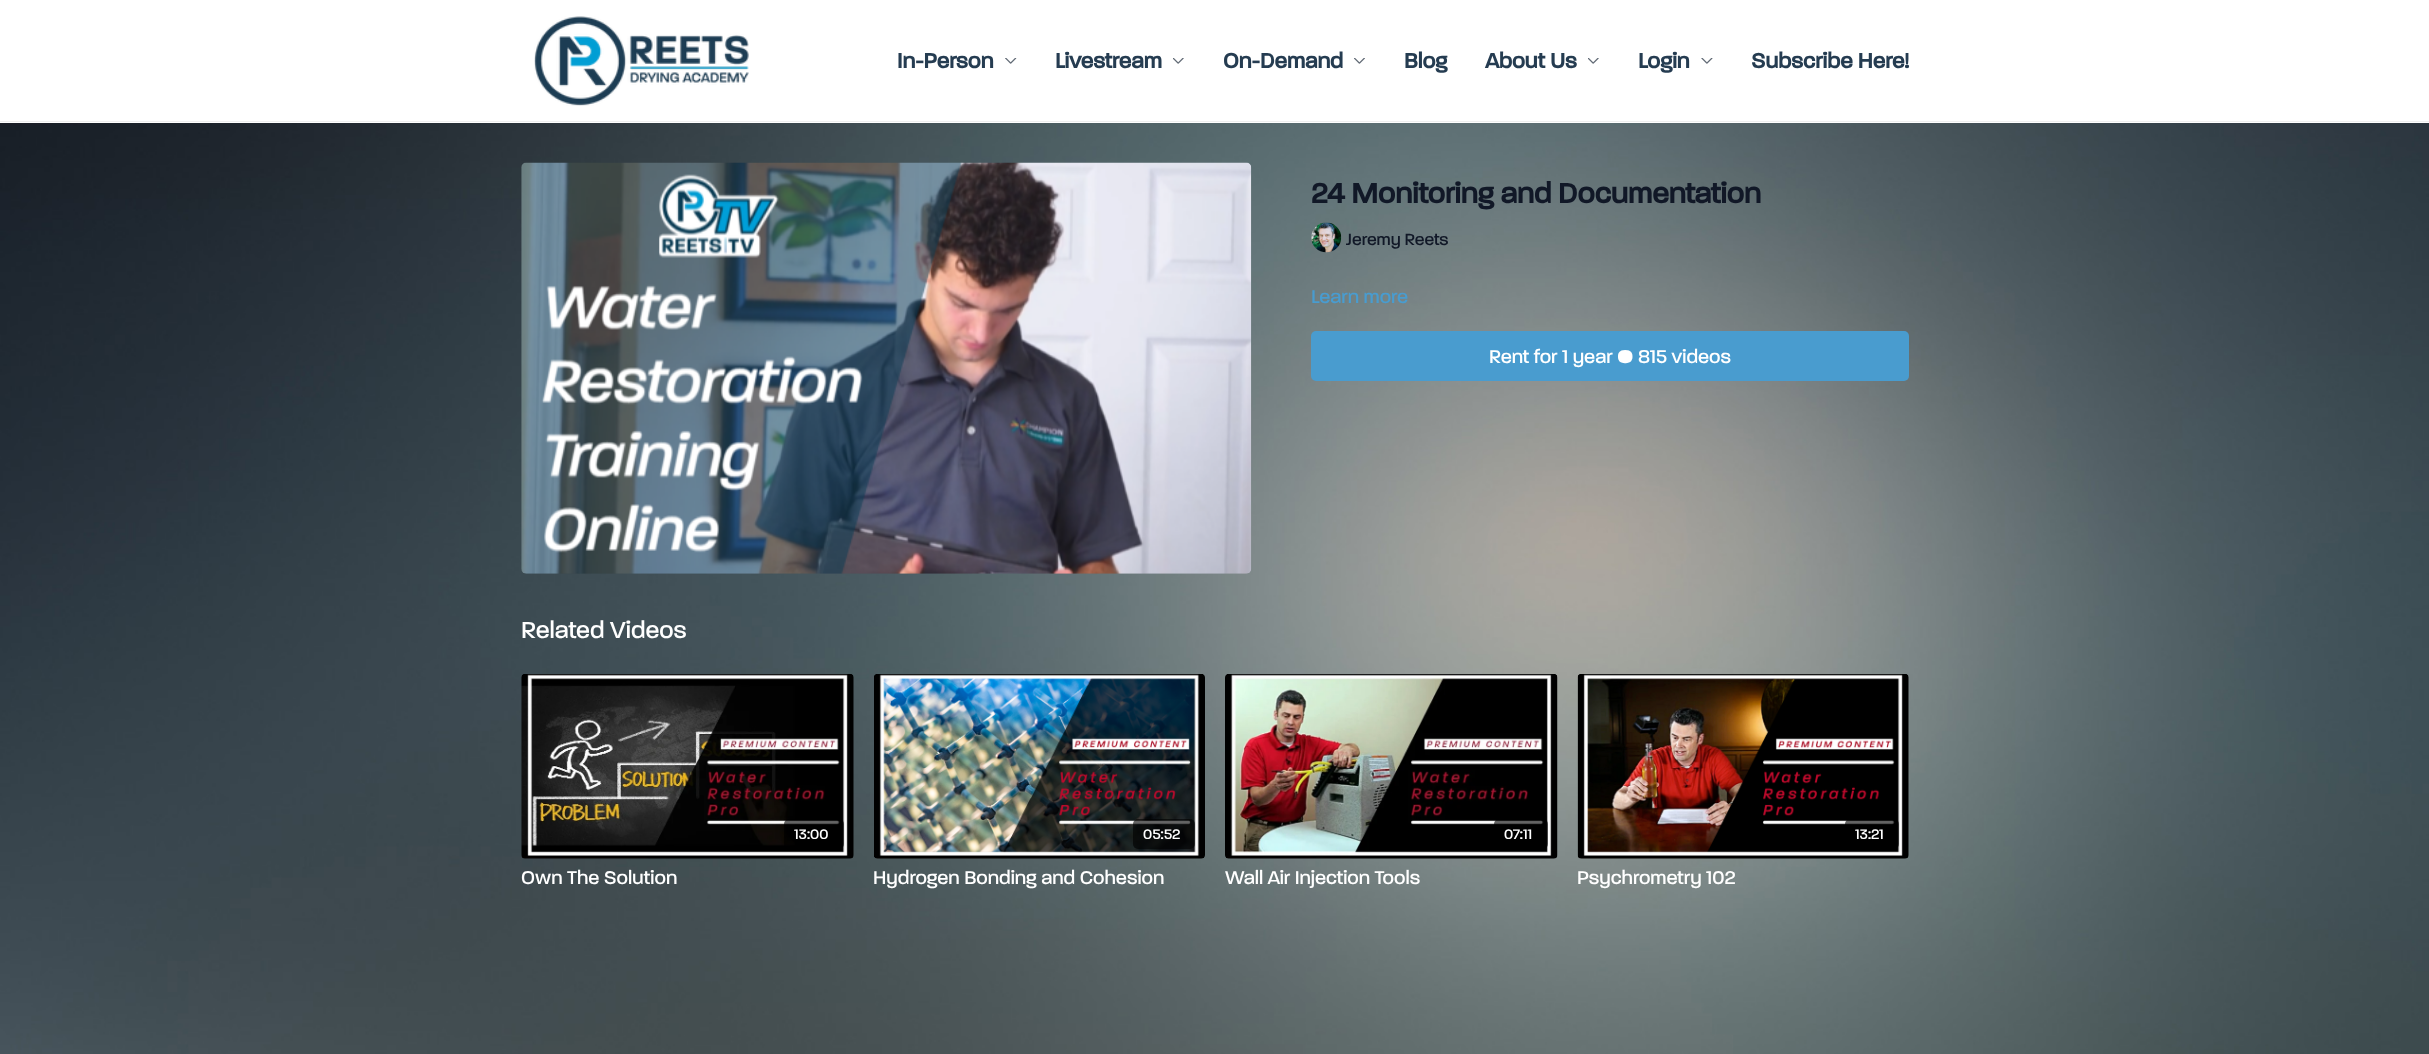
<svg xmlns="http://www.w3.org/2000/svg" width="2429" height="1054">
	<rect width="100%" height="100%" fill="#FFFFFF" />
	<rect x="0" y="121" width="2429" height="1" fill="#EFEFEF" />
	<image x="534" y="16" width="215" height="90" href="assets/img1.png" />
	<text x="897" y="68" font-family="'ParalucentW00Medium'" font-size="22.5" font-weight="700" fill="#253C51">In-Person</text>
	<image x="1005" y="58" width="12" height="6" href="assets/img2.png" />
	<text x="1055" y="68" font-family="'ParalucentW00Medium'" font-size="22.5" font-weight="700" fill="#253C51">Livestream</text>
	<image x="1173" y="58" width="11" height="6" href="assets/img3.png" />
	<text x="1223" y="68" font-family="'ParalucentW00Medium'" font-size="22.5" font-weight="700" fill="#253C51">On-Demand</text>
	<image x="1354" y="58" width="11" height="6" href="assets/img4.png" />
	<g font-family="'ParalucentW00Medium'" font-size="22.5" font-weight="700" fill="#253C51">
		<text x="1404" y="68">Blog</text>
		<text x="1485" y="68">About Us</text>
	</g>
	<image x="1588" y="58" width="11" height="6" href="assets/img3.png" />
	<text x="1638" y="68" font-family="'ParalucentW00Medium'" font-size="22.5" font-weight="700" fill="#253C51">Login</text>
	<image x="1701" y="58" width="12" height="6" href="assets/img5.png" />
	<text x="1751" y="68" font-family="'ParalucentW00Medium'" font-size="22.5" font-weight="700" fill="#253C51">Subscribe Here!</text>
	<image x="0" y="123" width="2429" height="931" href="assets/img6.png" />
	<image x="521" y="162" width="731" height="412" href="assets/img7.png" />
	<text x="1311" y="203" font-family="'ParalucentW00Medium'" font-size="30" font-weight="700" fill="#111827">24 Monitoring and Documentation</text>
	<image x="1311" y="222" width="31" height="31" href="assets/img8.png" />
	<text x="1346" y="245" font-family="'ParalucentW00Medium'" font-size="17.5" font-weight="500" fill="#111827">Jeremy Reets</text>
	<text x="1311" y="303" font-family="'ParalucentW00Medium'" font-size="20" font-weight="500" fill="#499CCF">Learn more</text>
	<rect x="1311" y="331" width="598" height="50" rx="5" fill="#499CCF" />
	<text x="1489" y="363" font-family="'ParalucentW00Medium'" font-size="20" font-weight="500" fill="#FFFFFF">Rent for 1 year • 815 videos</text>
	<text x="521" y="638" font-family="'ParalucentW00Medium'" font-size="25" font-weight="500" fill="#FFFFFF">Related Videos</text>
	<image x="521" y="674" width="333" height="185" href="assets/img9.png" />
	<rect x="784" y="819" width="60" height="30" rx="5" fill="#000000" fill-opacity="0.6" />
	<text x="794" y="839" font-family="'ParalucentW00Medium'" font-size="15" font-weight="500" fill="#FFFFFF">13:00</text>
	<text x="521" y="884" font-family="'ParalucentW00Medium'" font-size="20" font-weight="500" fill="#FFFFFF">Own The Solution</text>
	<image x="874" y="674" width="331" height="185" href="assets/img10.png" />
	<rect x="1133" y="819" width="62" height="30" rx="5" fill="#000000" fill-opacity="0.6" />
	<text x="1143" y="839" font-family="'ParalucentW00Medium'" font-size="15" font-weight="500" fill="#FFFFFF">05:52</text>
	<text x="873" y="884" font-family="'ParalucentW00Medium'" font-size="20" font-weight="500" fill="#FFFFFF">Hydrogen Bonding and Cohesion</text>
	<image x="1225" y="674" width="333" height="185" href="assets/img11.png" />
	<rect x="1494" y="819" width="54" height="30" rx="5" fill="#000000" fill-opacity="0.6" />
	<text x="1504" y="839" font-family="'ParalucentW00Medium'" font-size="15" font-weight="500" fill="#FFFFFF">07:11</text>
	<text x="1225" y="884" font-family="'ParalucentW00Medium'" font-size="20" font-weight="500" fill="#FFFFFF">Wall Air Injection Tools</text>
	<image x="1577" y="674" width="332" height="185" href="assets/img12.png" />
	<rect x="1845" y="819" width="54" height="30" rx="5" fill="#000000" fill-opacity="0.6" />
	<text x="1855" y="839" font-family="'ParalucentW00Medium'" font-size="15" font-weight="500" fill="#FFFFFF">13:21</text>
	<text x="1577" y="884" font-family="'ParalucentW00Medium'" font-size="20" font-weight="500" fill="#FFFFFF">Psychrometry 102</text>
</svg>
